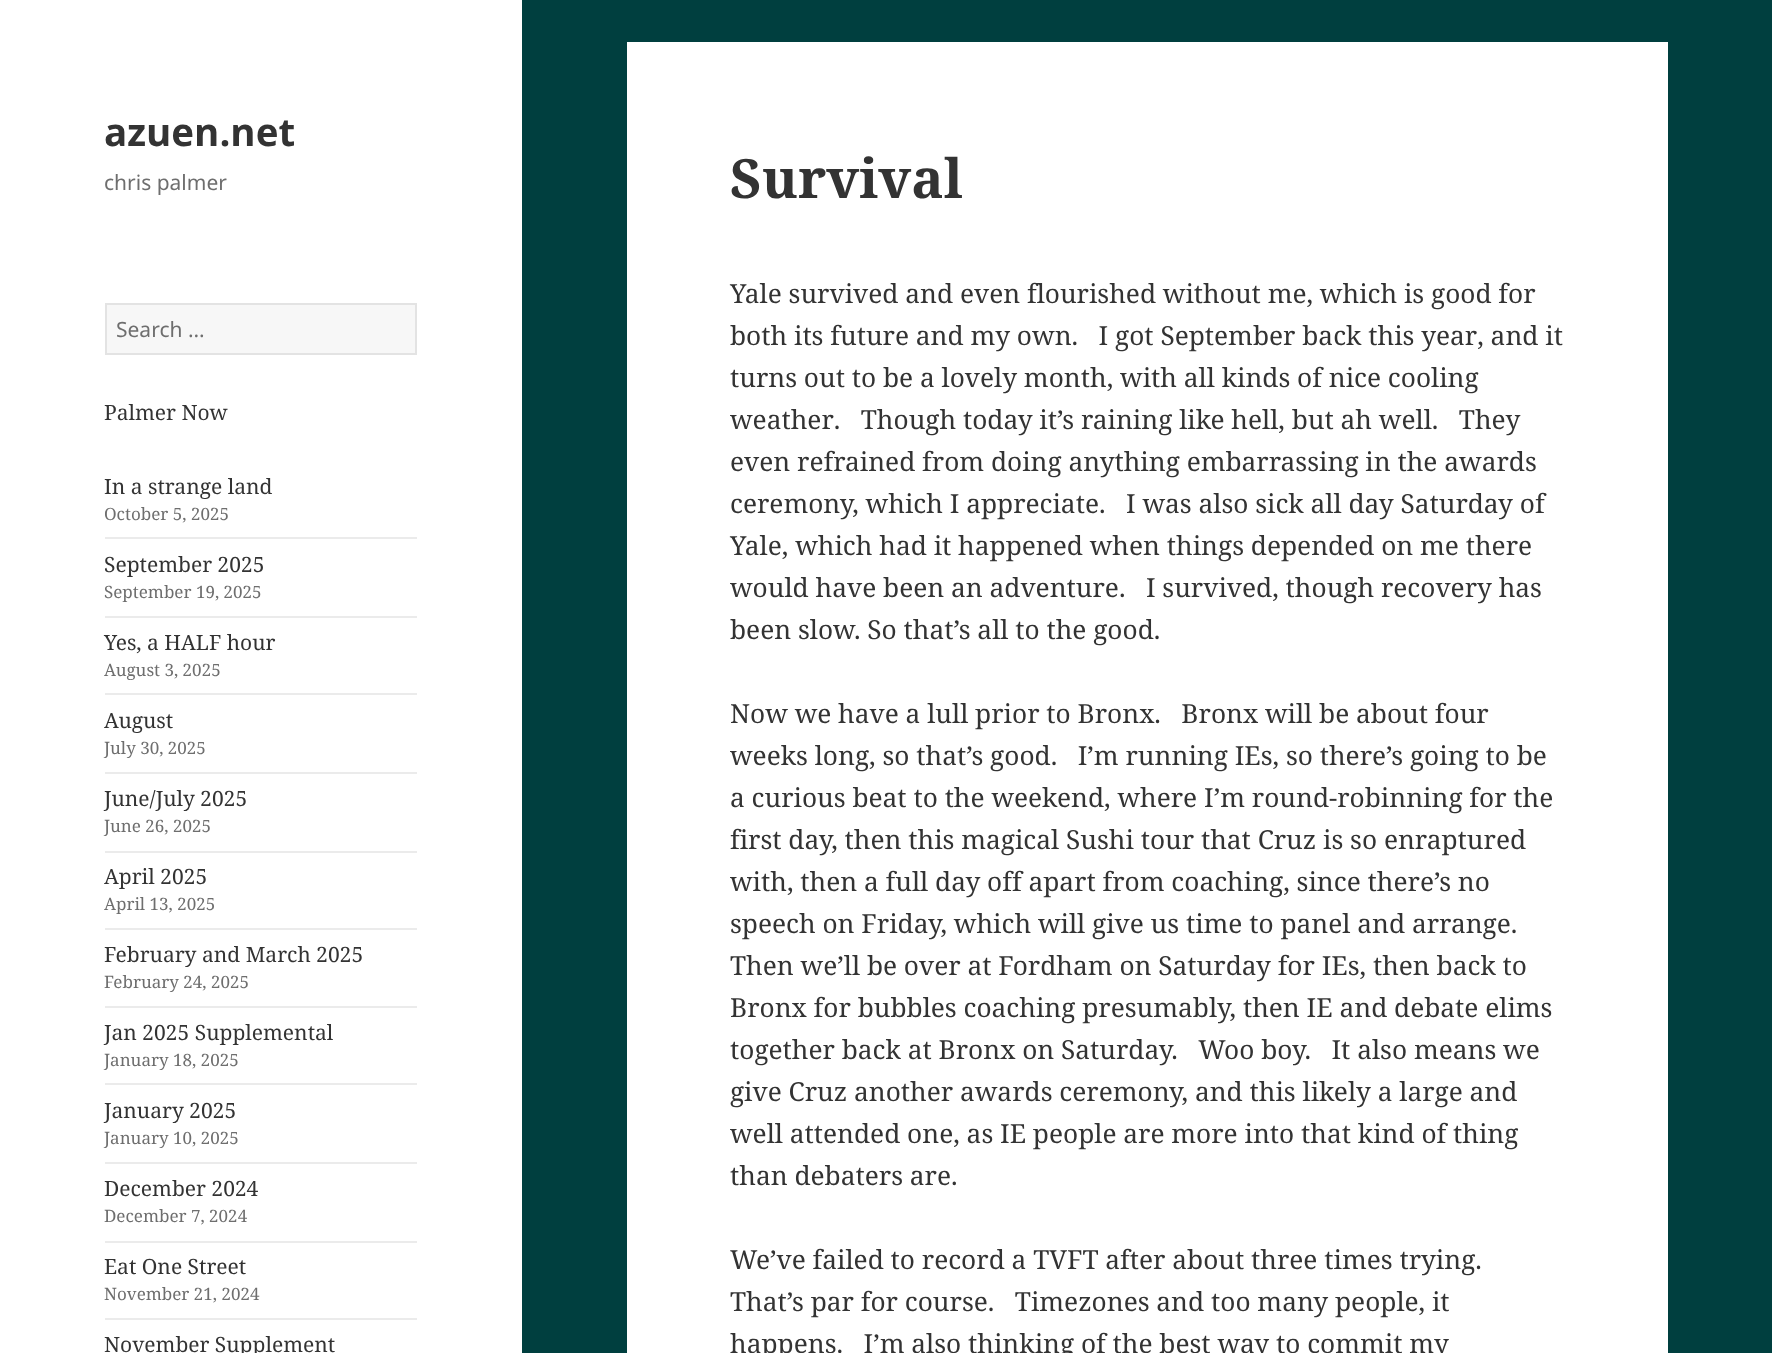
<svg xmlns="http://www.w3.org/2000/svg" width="1772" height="1353">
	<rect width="100%" height="100%" fill="#003F3F" />
	<rect x="0" y="0" width="522" height="1353" fill="#FFFFFF" />
	<text x="104" y="146" font-family="Noto Sans" font-size="38.5" font-weight="700" fill="#333333">azuen.net</text>
	<text x="104" y="190" font-family="Noto Sans" font-size="21" fill="#6E6E6E">chris palmer</text>
	<rect x="106" y="304" width="310" height="50" fill="#F7F7F7" stroke="#E3E3E3" stroke-width="2" />
	<text x="116" y="337" font-family="Noto Sans" font-size="21" fill="#6E6E6E">Search …</text>
	<g font-family="Noto Serif" font-size="21" fill="#333333">
		<text x="104" y="420">Palmer Now</text>
		<text x="104" y="494">In a strange land</text>
	</g>
	<text x="104" y="520" font-family="Noto Serif" font-size="17" fill="#6E6E6E">October 5, 2025</text>
	<rect x="105" y="537" width="312" height="2" fill="#EBEBEB" />
	<text x="104" y="572" font-family="Noto Serif" font-size="21" fill="#333333">September 2025</text>
	<text x="104" y="598" font-family="Noto Serif" font-size="17" fill="#6E6E6E">September 19, 2025</text>
	<rect x="105" y="616" width="312" height="2" fill="#EBEBEB" />
	<text x="104" y="650" font-family="Noto Serif" font-size="21" fill="#333333">Yes, a HALF hour</text>
	<text x="104" y="676" font-family="Noto Serif" font-size="17" fill="#6E6E6E">August 3, 2025</text>
	<rect x="105" y="693" width="312" height="2" fill="#EBEBEB" />
	<text x="104" y="728" font-family="Noto Serif" font-size="21" fill="#333333">August</text>
	<text x="104" y="754" font-family="Noto Serif" font-size="17" fill="#6E6E6E">July 30, 2025</text>
	<rect x="105" y="772" width="312" height="2" fill="#EBEBEB" />
	<text x="104" y="806" font-family="Noto Serif" font-size="21" fill="#333333">June/July 2025</text>
	<text x="104" y="832" font-family="Noto Serif" font-size="17" fill="#6E6E6E">June 26, 2025</text>
	<rect x="105" y="851" width="312" height="2" fill="#EBEBEB" />
	<text x="104" y="884" font-family="Noto Serif" font-size="21" fill="#333333">April 2025</text>
	<text x="104" y="910" font-family="Noto Serif" font-size="17" fill="#6E6E6E">April 13, 2025</text>
	<rect x="105" y="928" width="312" height="2" fill="#EBEBEB" />
	<text x="104" y="962" font-family="Noto Serif" font-size="21" fill="#333333">February and March 2025</text>
	<text x="104" y="988" font-family="Noto Serif" font-size="17" fill="#6E6E6E">February 24, 2025</text>
	<rect x="105" y="1006" width="312" height="2" fill="#EBEBEB" />
	<text x="104" y="1040" font-family="Noto Serif" font-size="21" fill="#333333">Jan 2025 Supplemental</text>
	<text x="104" y="1066" font-family="Noto Serif" font-size="17" fill="#6E6E6E">January 18, 2025</text>
	<rect x="105" y="1083" width="312" height="2" fill="#EBEBEB" />
	<text x="104" y="1118" font-family="Noto Serif" font-size="21" fill="#333333">January 2025</text>
	<text x="104" y="1144" font-family="Noto Serif" font-size="17" fill="#6E6E6E">January 10, 2025</text>
	<rect x="105" y="1162" width="312" height="2" fill="#EBEBEB" />
	<text x="104" y="1196" font-family="Noto Serif" font-size="21" fill="#333333">December 2024</text>
	<text x="104" y="1222" font-family="Noto Serif" font-size="17" fill="#6E6E6E">December 7, 2024</text>
	<rect x="105" y="1241" width="312" height="2" fill="#EBEBEB" />
	<text x="104" y="1274" font-family="Noto Serif" font-size="21" fill="#333333">Eat One Street</text>
	<text x="104" y="1300" font-family="Noto Serif" font-size="17" fill="#6E6E6E">November 21, 2024</text>
	<rect x="105" y="1318" width="312" height="2" fill="#EBEBEB" />
	<text x="104" y="1352" font-family="Noto Serif" font-size="21" fill="#333333">November Supplement</text>
	<rect x="627" y="42" width="1041" height="1311" fill="#FFFFFF" />
	<text x="730" y="198" font-family="Noto Serif" font-size="54.25" font-weight="700" fill="#333333">Survival</text>
	<g font-family="Noto Serif" font-size="26.25" fill="#333333">
		<text x="730" y="303">Yale survived and even flourished without me, which is good for</text>
		<text x="730" y="345" xml:space="preserve">both its future and my own.   I got September back this year, and it</text>
		<text x="730" y="387">turns out to be a lovely month, with all kinds of nice cooling</text>
		<text x="730" y="429" xml:space="preserve">weather.   Though today it’s raining like hell, but ah well.   They</text>
		<text x="730" y="471">even refrained from doing anything embarrassing in the awards</text>
		<text x="730" y="513" xml:space="preserve">ceremony, which I appreciate.   I was also sick all day Saturday of</text>
		<text x="730" y="555">Yale, which had it happened when things depended on me there</text>
		<text x="730" y="597" xml:space="preserve">would have been an adventure.   I survived, though recovery has</text>
		<text x="730" y="639">been slow. So that’s all to the good.</text>
		<text x="730" y="723" xml:space="preserve">Now we have a lull prior to Bronx.   Bronx will be about four</text>
		<text x="730" y="765" xml:space="preserve">weeks long, so that’s good.   I’m running IEs, so there’s going to be</text>
		<text x="730" y="807">a curious beat to the weekend, where I’m round-robinning for the</text>
		<text x="730" y="849">first day, then this magical Sushi tour that Cruz is so enraptured</text>
		<text x="730" y="891">with, then a full day off apart from coaching, since there’s no</text>
		<text x="730" y="933">speech on Friday, which will give us time to panel and arrange.</text>
		<text x="730" y="975">Then we’ll be over at Fordham on Saturday for IEs, then back to</text>
		<text x="730" y="1017">Bronx for bubbles coaching presumably, then IE and debate elims</text>
		<text x="730" y="1059" xml:space="preserve">together back at Bronx on Saturday.   Woo boy.   It also means we</text>
		<text x="730" y="1101">give Cruz another awards ceremony, and this likely a large and</text>
		<text x="730" y="1143">well attended one, as IE people are more into that kind of thing</text>
		<text x="730" y="1185">than debaters are.</text>
		<text x="730" y="1269">We’ve failed to record a TVFT after about three times trying.</text>
		<text x="730" y="1311" xml:space="preserve">That’s par for course.   Timezones and too many people, it</text>
		<text x="730" y="1353" xml:space="preserve">happens.   I’m also thinking of the best way to commit my</text>
	</g>
</svg>
